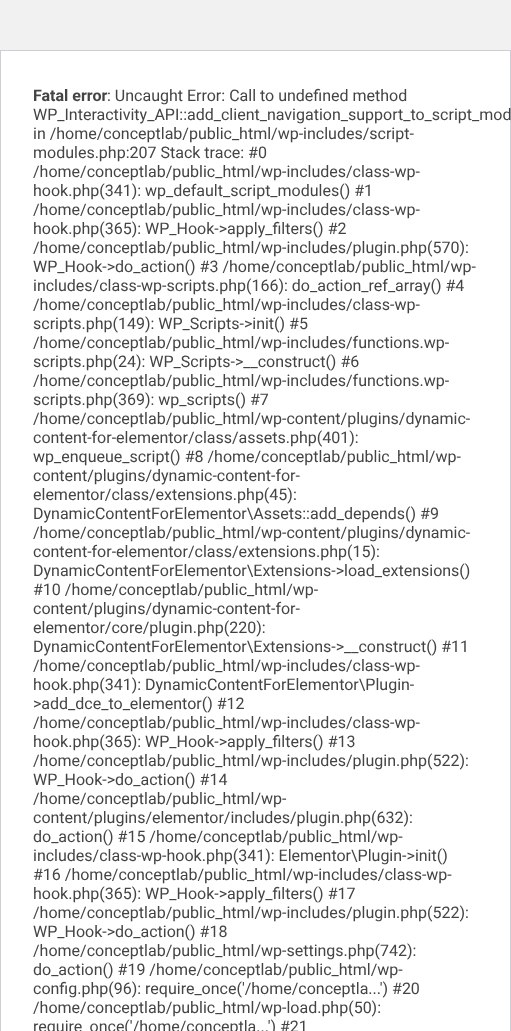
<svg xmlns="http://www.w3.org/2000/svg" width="511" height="1031">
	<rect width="100%" height="100%" fill="#F1F1F1" />
	<rect x="0.5" y="50.5" width="510" height="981" fill="#FFFFFF" stroke="#CCD0D4" />
	<text x="33" y="101" font-family="Roboto" font-size="16" font-weight="700" fill="#444444">Fatal error</text>
	<g font-family="Roboto" font-size="16" fill="#444444">
		<text x="107" y="101">: Uncaught Error: Call to undefined method</text>
		<text x="33" y="120">WP_Interactivity_API::add_client_navigation_support_to_script_mod</text>
		<text x="33" y="139">in /home/conceptlab/public_html/wp-includes/script-</text>
		<text x="33" y="158">modules.php:207 Stack trace: #0</text>
		<text x="33" y="177">/home/conceptlab/public_html/wp-includes/class-wp-</text>
		<text x="33" y="196">hook.php(341): wp_default_script_modules() #1</text>
		<text x="33" y="215">/home/conceptlab/public_html/wp-includes/class-wp-</text>
		<text x="33" y="234">hook.php(365): WP_Hook-&gt;apply_filters() #2</text>
		<text x="33" y="253">/home/conceptlab/public_html/wp-includes/plugin.php(570):</text>
		<text x="33" y="272">WP_Hook-&gt;do_action() #3 /home/conceptlab/public_html/wp-</text>
		<text x="33" y="291">includes/class-wp-scripts.php(166): do_action_ref_array() #4</text>
		<text x="33" y="310">/home/conceptlab/public_html/wp-includes/class-wp-</text>
		<text x="33" y="329">scripts.php(149): WP_Scripts-&gt;init() #5</text>
		<text x="33" y="348">/home/conceptlab/public_html/wp-includes/functions.wp-</text>
		<text x="33" y="367">scripts.php(24): WP_Scripts-&gt;__construct() #6</text>
		<text x="33" y="386">/home/conceptlab/public_html/wp-includes/functions.wp-</text>
		<text x="33" y="405">scripts.php(369): wp_scripts() #7</text>
		<text x="33" y="424">/home/conceptlab/public_html/wp-content/plugins/dynamic-</text>
		<text x="33" y="443">content-for-elementor/class/assets.php(401):</text>
		<text x="33" y="462">wp_enqueue_script() #8 /home/conceptlab/public_html/wp-</text>
		<text x="33" y="481">content/plugins/dynamic-content-for-</text>
		<text x="33" y="500">elementor/class/extensions.php(45):</text>
		<text x="33" y="519">DynamicContentForElementor\Assets::add_depends() #9</text>
		<text x="33" y="538">/home/conceptlab/public_html/wp-content/plugins/dynamic-</text>
		<text x="33" y="557">content-for-elementor/class/extensions.php(15):</text>
		<text x="33" y="576">DynamicContentForElementor\Extensions-&gt;load_extensions()</text>
		<text x="33" y="595">#10 /home/conceptlab/public_html/wp-</text>
		<text x="33" y="614">content/plugins/dynamic-content-for-</text>
		<text x="33" y="633">elementor/core/plugin.php(220):</text>
		<text x="33" y="652">DynamicContentForElementor\Extensions-&gt;__construct() #11</text>
		<text x="33" y="671">/home/conceptlab/public_html/wp-includes/class-wp-</text>
		<text x="33" y="690">hook.php(341): DynamicContentForElementor\Plugin-</text>
		<text x="33" y="709">&gt;add_dce_to_elementor() #12</text>
		<text x="33" y="728">/home/conceptlab/public_html/wp-includes/class-wp-</text>
		<text x="33" y="747">hook.php(365): WP_Hook-&gt;apply_filters() #13</text>
		<text x="33" y="766">/home/conceptlab/public_html/wp-includes/plugin.php(522):</text>
		<text x="33" y="785">WP_Hook-&gt;do_action() #14</text>
		<text x="33" y="804">/home/conceptlab/public_html/wp-</text>
		<text x="33" y="823">content/plugins/elementor/includes/plugin.php(632):</text>
		<text x="33" y="842">do_action() #15 /home/conceptlab/public_html/wp-</text>
		<text x="33" y="861">includes/class-wp-hook.php(341): Elementor\Plugin-&gt;init()</text>
		<text x="33" y="880">#16 /home/conceptlab/public_html/wp-includes/class-wp-</text>
		<text x="33" y="899">hook.php(365): WP_Hook-&gt;apply_filters() #17</text>
		<text x="33" y="918">/home/conceptlab/public_html/wp-includes/plugin.php(522):</text>
		<text x="33" y="937">WP_Hook-&gt;do_action() #18</text>
		<text x="33" y="956">/home/conceptlab/public_html/wp-settings.php(742):</text>
		<text x="33" y="975">do_action() #19 /home/conceptlab/public_html/wp-</text>
		<text x="33" y="994">config.php(96): require_once('/home/conceptla...') #20</text>
		<text x="33" y="1013">/home/conceptlab/public_html/wp-load.php(50):</text>
		<text x="33" y="1032">require_once('/home/conceptla...') #21</text>
	</g>
</svg>
